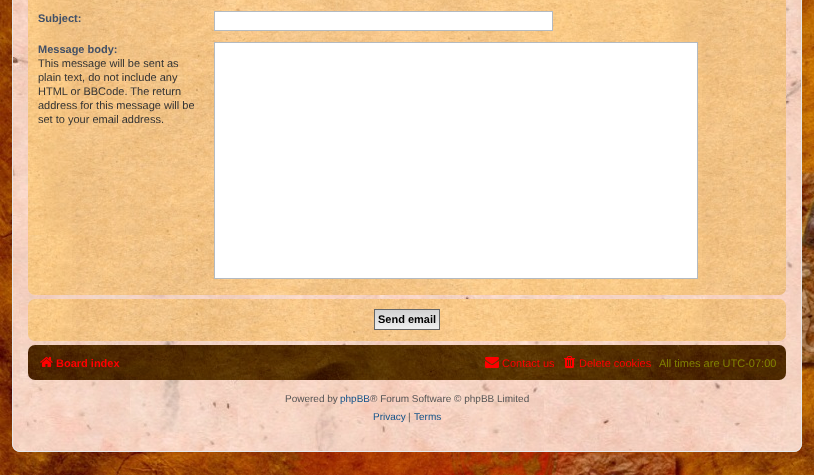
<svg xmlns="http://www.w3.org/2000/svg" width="814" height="475">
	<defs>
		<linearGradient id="g1" gradientUnits="userSpaceOnUse" x1="407" y1="310" x2="407" y2="329"><stop offset="0" stop-color="#D2D2D2" /><stop offset="1" stop-color="#EFEFEF" /></linearGradient>
	</defs>
	<rect width="100%" height="100%" fill="#FFFFFF" />
	<image x="0" y="0" width="814" height="475" href="assets/img1.png" />
	<image x="12" y="0" width="790" height="452" href="assets/img2.png" />
	<rect x="12.5" y="-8.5" width="789" height="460" rx="7.5" fill="none" stroke="#E6E9ED" />
	<image x="28" y="0" width="758" height="295" href="assets/img3.png" />
	<text x="38" y="22" font-family="Liberation Sans" font-size="11" font-weight="700" fill="#425067">Subject:</text>
	<rect x="214.5" y="11.5" width="338" height="19" fill="#FFFFFF" stroke="#B4BAC0" />
	<text x="38" y="53" font-family="Liberation Sans" font-size="11" font-weight="700" fill="#425067">Message body:</text>
	<g font-family="Liberation Sans" font-size="11" fill="#333333">
		<text x="38" y="67">This message will be sent as</text>
		<text x="38" y="81">plain text, do not include any</text>
		<text x="38" y="95">HTML or BBCode. The return</text>
		<text x="38" y="109">address for this message will be</text>
		<text x="38" y="123">set to your email address.</text>
	</g>
	<rect x="214.5" y="42.5" width="483" height="236" fill="#FFFFFF" stroke="#B4BAC0" />
	<image x="28" y="299" width="758" height="42" href="assets/img4.png" />
	<rect x="375" y="310" width="64" height="19" fill="url(#g1)" />
	<rect x="374.5" y="309.5" width="65" height="20" fill="none" stroke="#666666" />
	<text x="378" y="323" font-family="Liberation Sans" font-size="11" font-weight="700" fill="#000000">Send email</text>
	<image x="28" y="345" width="758" height="35" href="assets/img5.png" />
	<image x="40" y="357" width="13" height="10" href="assets/img6.png" />
	<text x="56" y="367" font-family="Liberation Sans" font-size="11" font-weight="700" fill="#FF0000">Board index</text>
	<image x="485" y="357" width="14" height="11" href="assets/img7.png" />
	<text x="502" y="367" font-family="Liberation Sans" font-size="11" fill="#FF0000">Contact us</text>
	<image x="564" y="356" width="11" height="12" href="assets/img8.png" />
	<text x="579" y="367" font-family="Liberation Sans" font-size="11" fill="#FF0000">Delete cookies</text>
	<text x="659" y="367" font-family="Liberation Sans" font-size="11" fill="#808000">All times are UTC-07:00</text>
	<text x="285" y="402" font-family="Liberation Sans" font-size="10" fill="#555555">Powered by</text>
	<text x="340" y="402" font-family="Liberation Sans" font-size="10" fill="#105289">phpBB</text>
	<text x="370" y="402" font-family="Liberation Sans" font-size="10" fill="#555555">® Forum Software © phpBB Limited</text>
	<text x="373" y="420" font-family="Liberation Sans" font-size="10" fill="#105289">Privacy</text>
	<text x="408" y="420" font-family="Liberation Sans" font-size="10" fill="#555555">|</text>
	<text x="414" y="420" font-family="Liberation Sans" font-size="10" fill="#105289">Terms</text>
</svg>
